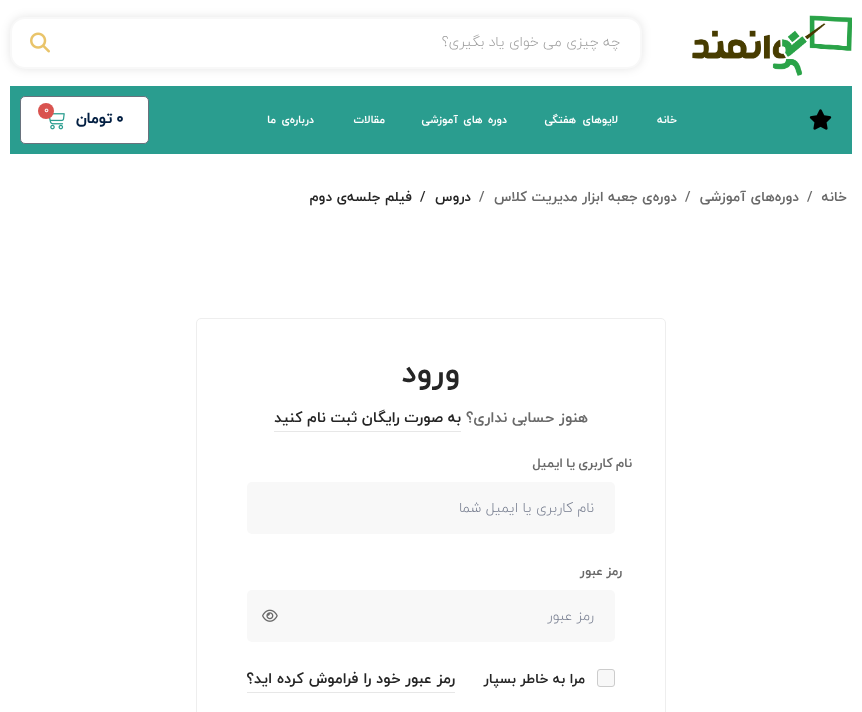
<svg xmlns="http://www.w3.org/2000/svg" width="862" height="712">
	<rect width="100%" height="100%" fill="#FFFFFF" />
	<image x="692" y="15" width="160" height="61" href="assets/img1.png" />
	<rect x="10" y="17" width="632" height="52" rx="15" fill="#000000" fill-opacity="0.1" filter="blur(5px)" />
	<rect x="11" y="18" width="630" height="50" rx="14" fill="#FFFFFF" stroke="#F8F8F8" stroke-width="2" />
	<text x="620" y="46" font-family="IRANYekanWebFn" font-size="14" font-weight="300" direction="rtl" fill="#9B9B9B">چه چیزی می خوای یاد بگیری؟</text>
	<image x="30" y="32" width="20" height="21" href="assets/img2.png" />
	<rect x="10" y="86" width="842" height="68" fill="#2A9D8F" />
	<image x="809" y="109" width="23" height="21" href="assets/img3.png" />
	<g font-family="'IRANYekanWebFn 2'" font-size="11" font-weight="700" letter-spacing="-0.25" direction="rtl" fill="#FFFFFF">
		<text x="677" y="123">خانه</text>
		<text x="618" y="123" word-spacing="3">لایوهای هفتگی</text>
		<text x="507" y="123" word-spacing="2">دوره های آموزشی</text>
		<text x="385" y="123">مقالات</text>
		<text x="314" y="123" word-spacing="2">درباره‌ی ما</text>
	</g>
	<rect x="20.5" y="96.5" width="128" height="47" rx="4.5" fill="#FFFFFF" stroke="#69727D" />
	<image x="49" y="113" width="16" height="17" href="assets/img4.png" />
	<circle cx="46" cy="111" r="8" fill="#D9534F" />
	<text x="44" y="113" font-family="IRANYekanWebFn" font-size="10" font-weight="500" fill="#FFFFFF">0</text>
	<text x="116" y="123" font-family="IRANYekanWebFn" font-size="15" font-weight="700" fill="#031F42">0</text>
	<text x="112" y="123" font-family="IRANYekanWebFn" font-size="15" font-weight="700" direction="rtl" fill="#031F42">تومان</text>
	<text x="847" y="201" font-family="'IRANYekanWebFn 2'" font-size="14" font-weight="700" direction="rtl" fill="#696969">خانه</text>
	<text x="807" y="201" font-family="'IRANYekanWebFn 2'" font-size="14" font-weight="700" fill="#696969">/</text>
	<text x="799" y="201" font-family="'IRANYekanWebFn 2'" font-size="14" font-weight="700" direction="rtl" fill="#696969">دوره‌های آموزشی</text>
	<text x="685" y="201" font-family="'IRANYekanWebFn 2'" font-size="14" font-weight="700" fill="#696969">/</text>
	<text x="677" y="201" font-family="'IRANYekanWebFn 2'" font-size="14" font-weight="700" direction="rtl" fill="#696969">دوره‌ی جعبه ابزار مدیریت کلاس</text>
	<text x="479" y="201" font-family="'IRANYekanWebFn 2'" font-size="14" font-weight="700" fill="#696969">/</text>
	<text x="471" y="201" font-family="'IRANYekanWebFn 2'" font-size="14" font-weight="700" direction="rtl" fill="#252525">دروس</text>
	<text x="420" y="201" font-family="'IRANYekanWebFn 2'" font-size="14" font-weight="700" fill="#252525">/</text>
	<text x="412" y="201" font-family="'IRANYekanWebFn 2'" font-size="14" font-weight="700" direction="rtl" fill="#252525">فیلم جلسه‌ی دوم</text>
	<rect x="196.5" y="318.5" width="469" height="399" rx="4.5" fill="none" stroke="#EEEEEE" />
	<text x="460" y="382" font-family="'IRANYekanWebFn 2'" font-size="32" font-weight="700" direction="rtl" fill="#252525">ورود</text>
	<text x="588" y="422" font-family="'IRANYekanWebFn 2'" font-size="15" font-weight="700" direction="rtl" fill="#696969">هنوز حسابی نداری؟</text>
	<text x="461" y="422" font-family="'IRANYekanWebFn 2'" font-size="15" font-weight="700" direction="rtl" fill="#252525">به صورت رایگان ثبت نام کنید</text>
	<rect x="274" y="431" width="187" height="1" fill="#E7E7E7" />
	<text x="632" y="467" word-spacing="-1" font-family="'IRANYekanWebFn 2'" font-size="13" font-weight="700" letter-spacing="1" direction="rtl" fill="#696969">نام کاربری یا ایمیل</text>
	<rect x="247" y="482" width="368" height="52" rx="5" fill="#F8F8F8" />
	<text x="594" y="512" font-family="IRANYekanWebFn" font-size="14" font-weight="300" direction="rtl" fill="#757C8E">نام کاربری یا ایمیل شما</text>
	<text x="622" y="575" word-spacing="-1" font-family="'IRANYekanWebFn 2'" font-size="13" font-weight="700" letter-spacing="1" direction="rtl" fill="#696969">رمز عبور</text>
	<rect x="247" y="590" width="368" height="52" rx="5" fill="#F8F8F8" />
	<text x="594" y="620" font-family="IRANYekanWebFn" font-size="14" font-weight="300" direction="rtl" fill="#757C8E">رمز عبور</text>
	<image x="262" y="609" width="16" height="13" href="assets/img5.png" />
	<rect x="597.5" y="669.5" width="17" height="17" rx="2.5" fill="#F8F8F8" stroke="#CCCCCC" />
	<text x="585" y="683" font-family="'IRANYekanWebFn 2'" font-size="14" font-weight="700" direction="rtl" fill="#252525">مرا به خاطر بسپار</text>
	<text x="455" y="683" font-family="'IRANYekanWebFn 2'" font-size="15" font-weight="700" direction="rtl" fill="#252525">رمز عبور خود را فراموش کرده اید؟</text>
	<rect x="247" y="692" width="208" height="1" fill="#E7E7E7" />
</svg>
